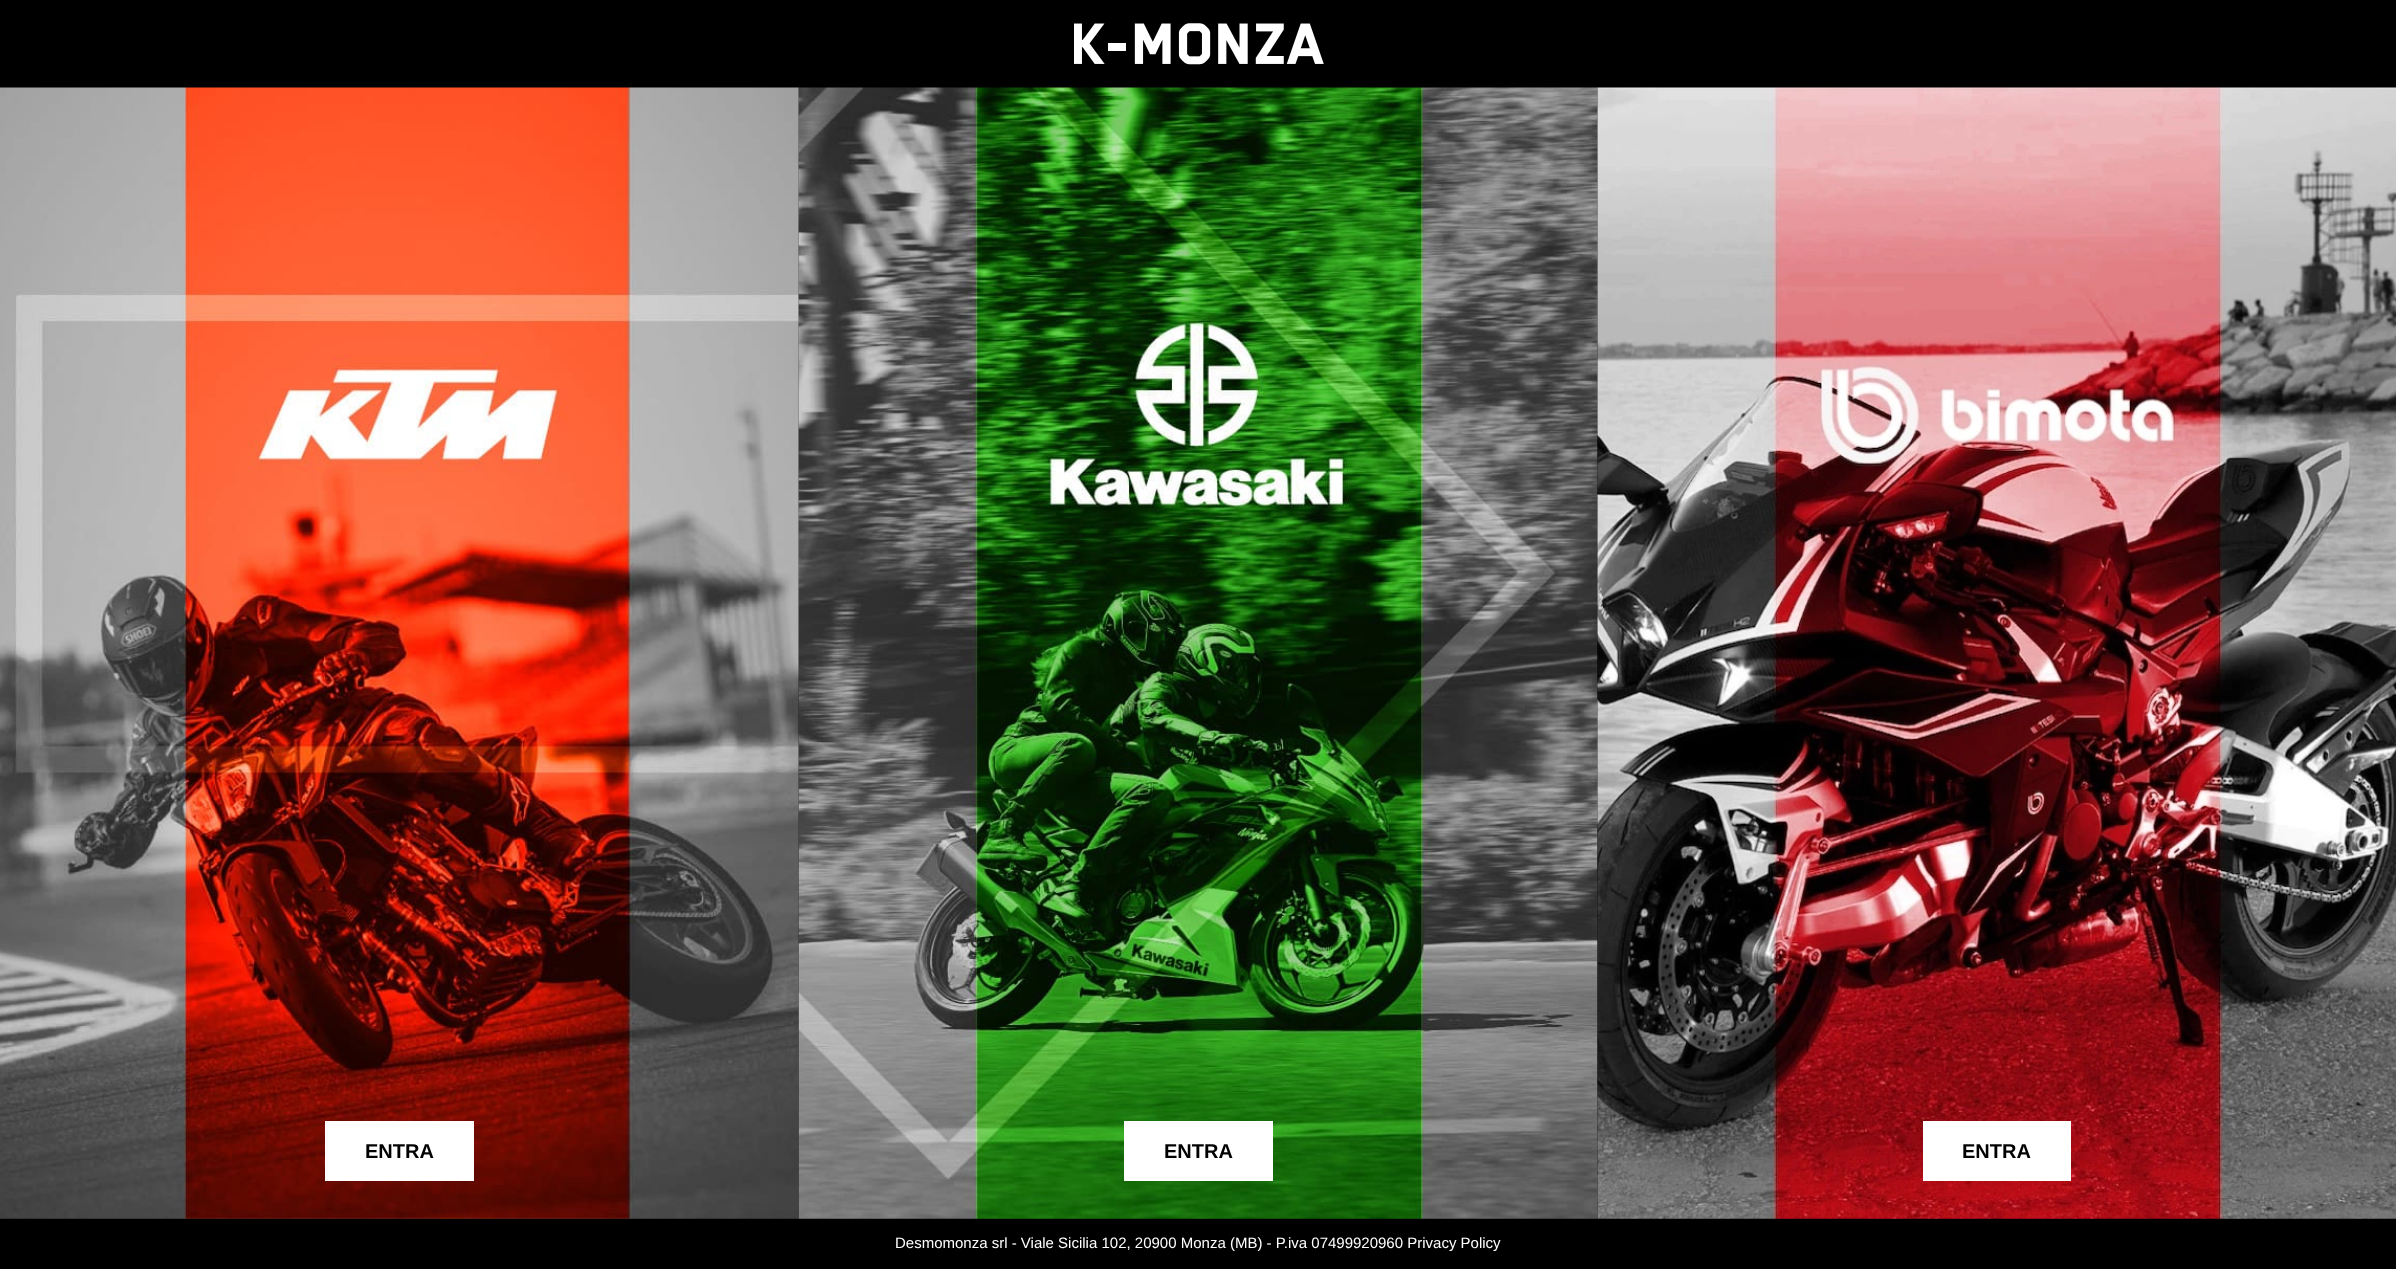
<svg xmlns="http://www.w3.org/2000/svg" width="2396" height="1269">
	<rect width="100%" height="100%" fill="#000000" />
	<image x="1074" y="23" width="250" height="42" href="assets/img1.png" />
	<image x="0" y="87" width="799" height="1132" href="assets/img2.png" />
	<rect x="325" y="1121" width="149" height="60" fill="#FFFFFF" />
	<text x="365" y="1158" font-family="Liberation Sans" font-size="20" font-weight="700" fill="#000000">ENTRA</text>
	<image x="798" y="87" width="800" height="1132" href="assets/img3.png" />
	<rect x="1124" y="1121" width="149" height="60" fill="#FFFFFF" />
	<text x="1164" y="1158" font-family="Liberation Sans" font-size="20" font-weight="700" fill="#000000">ENTRA</text>
	<image x="1597" y="87" width="799" height="1132" href="assets/img4.png" />
	<rect x="1923" y="1121" width="148" height="60" fill="#FFFFFF" />
	<text x="1962" y="1158" font-family="Liberation Sans" font-size="20" font-weight="700" fill="#000000">ENTRA</text>
	<text x="895" y="1248" font-family="Liberation Sans" font-size="15" fill="#FFFFFF">Desmomonza srl - Viale Sicilia 102, 20900 Monza (MB) - P.iva 07499920960 Privacy Policy</text>
</svg>
